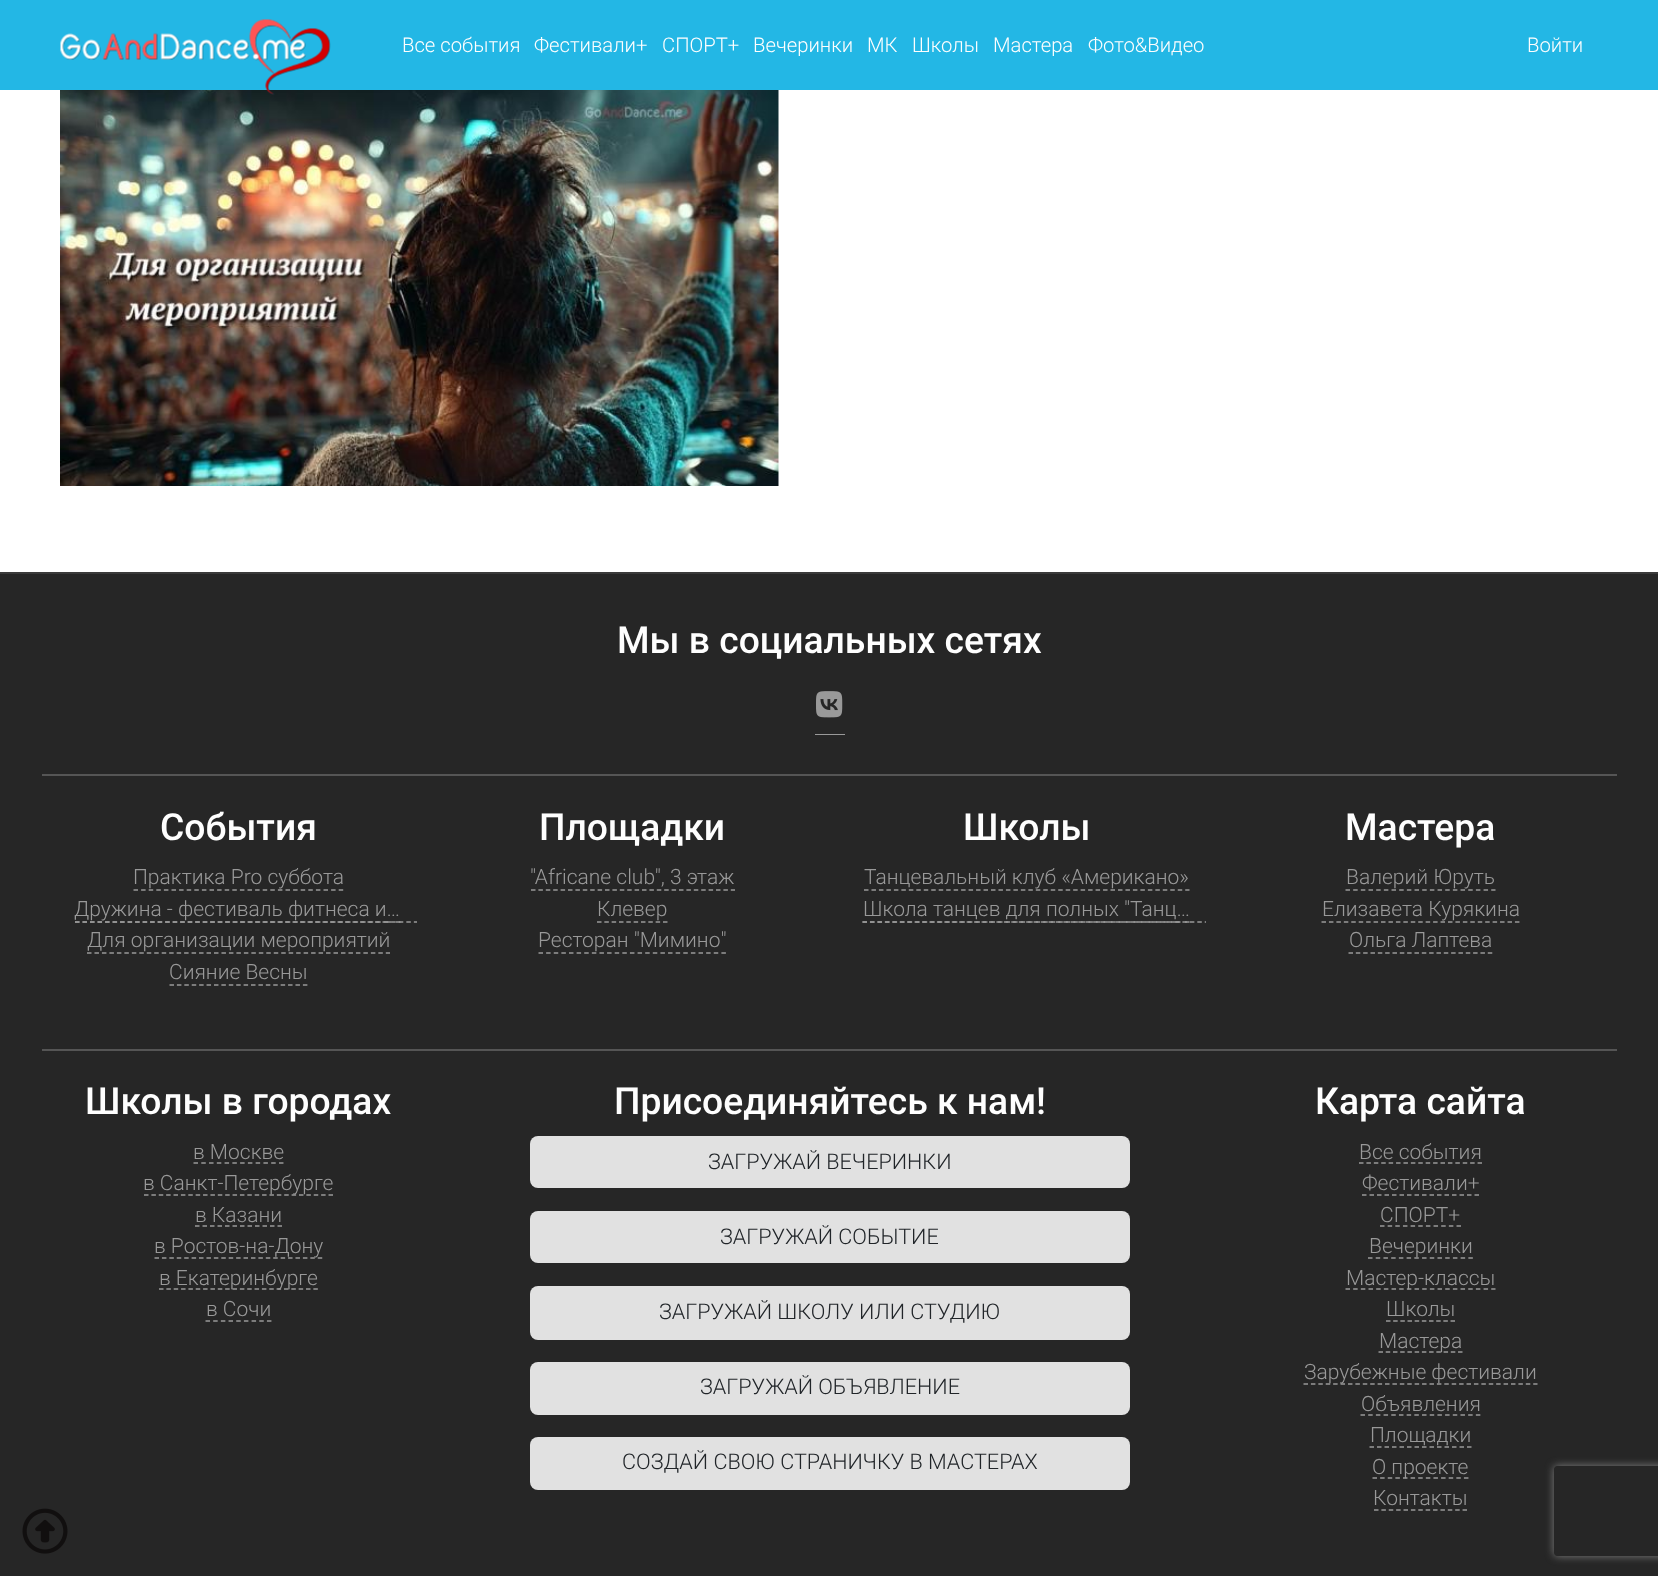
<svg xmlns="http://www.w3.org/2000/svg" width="1658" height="1576">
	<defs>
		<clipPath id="clip1"><rect x="60" y="894" width="357" height="32" /></clipPath>
		<clipPath id="clip2"><rect x="848" y="894" width="358" height="32" /></clipPath>
		<clipPath id="clip3"><path d="M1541 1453H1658V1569H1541ZM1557 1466H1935C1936.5 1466 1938 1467.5 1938 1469V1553C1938 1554.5 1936.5 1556 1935 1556H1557C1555.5 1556 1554 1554.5 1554 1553V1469C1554 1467.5 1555.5 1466 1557 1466Z" clip-rule="evenodd" /></clipPath>
	</defs>
	<rect width="100%" height="100%" fill="#FFFFFF" />
	<rect x="0" y="574" width="1658" height="1002" fill="#262626" />
	<image x="22" y="1508" width="46" height="46" href="assets/img1.png" />
	<rect x="0" y="0" width="1658" height="90" fill="#23B7E5" />
	<image x="60" y="90" width="719" height="396" href="assets/img3.png" />
	<image x="60" y="19" width="271" height="76" href="assets/img2.png" />
	<g font-family="Roboto" font-size="20.25" font-weight="300" fill="#FEFEFE">
		<text x="402" y="52">Все события</text>
		<text x="534" y="52">Фестивали+</text>
		<text x="662" y="52">СПОРТ+</text>
		<text x="753" y="52">Вечеринки</text>
		<text x="867" y="52">МК</text>
		<text x="912" y="52">Школы</text>
		<text x="993" y="52">Мастера</text>
		<text x="1088" y="52">Фото&amp;Видео</text>
		<text x="1527" y="52">Войти</text>
	</g>
	<rect x="0" y="572" width="1658" height="2" fill="#3A3A3A" />
	<text x="617" y="653" font-family="Roboto" font-size="37.25" font-weight="500" fill="#FEFEFE">Мы в социальных сетях</text>
	<rect x="815" y="734" width="30" height="1" fill="#999999" />
	<image x="816" y="691" width="27" height="27" href="assets/img4.png" />
	<rect x="42" y="774" width="1575" height="2" fill="#555555" />
	<text x="160" y="840" font-family="Roboto" font-size="37.25" font-weight="500" fill="#FEFEFE">События</text>
	<text x="133" y="884" font-family="Roboto" font-size="21" font-weight="300" fill="#999999">Практика Pro суббота</text>
	<path d="M133.5 890H343.5" fill="none" stroke="#999999" stroke-width="1.5" stroke-dasharray="4.5 3.1" />
	<text x="74" y="916" font-family="Roboto" font-size="21" font-weight="300" fill="#999999">Дружина - фестиваль фитнеса и…</text>
	<g clip-path="url(#clip1)">
		<path d="M75 922H531" fill="none" stroke="#999999" stroke-width="1.5" stroke-dasharray="4.5 3.03" />
	</g>
	<path d="M75 922H387" fill="none" stroke="#999999" stroke-width="1.5" stroke-dasharray="4.5 3" />
	<path d="M387 922H391.5M396 922H400.5" fill="none" stroke="#999999" stroke-width="1.5" />
	<text x="87" y="947" font-family="Roboto" font-size="21" font-weight="300" fill="#999999">Для организации мероприятий</text>
	<path d="M87 953H390" fill="none" stroke="#999999" stroke-width="1.5" stroke-dasharray="4.5 2.97" />
	<text x="169" y="979" font-family="Roboto" font-size="21" font-weight="300" fill="#999999">Сияние Весны</text>
	<path d="M169.5 985H307.5" fill="none" stroke="#999999" stroke-width="1.5" stroke-dasharray="4.5 2.91" />
	<text x="539" y="840" font-family="Roboto" font-size="37.25" font-weight="500" fill="#FEFEFE">Площадки</text>
	<text x="530" y="884" font-family="Roboto" font-size="21" font-weight="300" fill="#999999">"Africane club", 3 этаж</text>
	<path d="M531 890H735" fill="none" stroke="#999999" stroke-width="1.5" stroke-dasharray="4.5 2.9" />
	<text x="597" y="916" font-family="Roboto" font-size="21" font-weight="300" fill="#999999">Клевер</text>
	<path d="M597 922H667.5" fill="none" stroke="#999999" stroke-width="1.5" stroke-dasharray="4.5 2.83" />
	<text x="538" y="947" font-family="Roboto" font-size="21" font-weight="300" fill="#999999">Ресторан "Мимино"</text>
	<path d="M538.5 953H726" fill="none" stroke="#999999" stroke-width="1.5" stroke-dasharray="4.5 3.12" />
	<text x="963" y="840" font-family="Roboto" font-size="37.25" font-weight="500" fill="#FEFEFE">Школы</text>
	<text x="864" y="884" font-family="Roboto" font-size="21" font-weight="300" fill="#999999">Танцевальный клуб «Американо»</text>
	<path d="M864 890H1189.5" fill="none" stroke="#999999" stroke-width="1.5" stroke-dasharray="4.5 2.97" />
	<text x="863" y="916" font-family="Roboto" font-size="21" font-weight="300" fill="#999999">Школа танцев для полных "Танц…</text>
	<g clip-path="url(#clip2)">
		<path d="M862.5 922H1291.5" fill="none" stroke="#999999" stroke-width="1.5" stroke-dasharray="4.5 2.94" />
	</g>
	<path d="M862.5 922H1176" fill="none" stroke="#999999" stroke-width="1.5" stroke-dasharray="4.5 3.03" />
	<path d="M1176 922H1180.5M1185 922H1189.5" fill="none" stroke="#999999" stroke-width="1.5" />
	<text x="1345" y="840" font-family="Roboto" font-size="37.25" font-weight="500" fill="#FEFEFE">Мастера</text>
	<text x="1346" y="884" font-family="Roboto" font-size="21" font-weight="300" fill="#999999">Валерий Юруть</text>
	<path d="M1345.5 890H1495.5" fill="none" stroke="#999999" stroke-width="1.5" stroke-dasharray="4.5 3.17" />
	<text x="1322" y="916" font-family="Roboto" font-size="21" font-weight="300" fill="#999999">Елизавета Курякина</text>
	<path d="M1321.5 922H1519.5" fill="none" stroke="#999999" stroke-width="1.5" stroke-dasharray="4.5 2.94" />
	<text x="1349" y="947" font-family="Roboto" font-size="21" font-weight="300" fill="#999999">Ольга Лаптева</text>
	<path d="M1348.5 953H1492.5" fill="none" stroke="#999999" stroke-width="1.5" stroke-dasharray="4.5 2.83" />
	<rect x="42" y="1049" width="1575" height="2" fill="#555555" />
	<text x="85" y="1114" font-family="Roboto" font-size="37.25" font-weight="500" fill="#FEFEFE">Школы в городах</text>
	<text x="193" y="1159" font-family="Roboto" font-size="21" font-weight="300" fill="#999999">в Москве</text>
	<path d="M193.5 1163H283.5" fill="none" stroke="#999999" stroke-width="1.5" stroke-dasharray="4.5 3.27" />
	<path d="M144 1195H333" fill="none" stroke="#999999" stroke-width="1.5" stroke-dasharray="4.5 2.88" />
	<g font-family="Roboto" font-size="21" font-weight="300" fill="#999999">
		<text x="143" y="1190">в Санкт-Петербурге</text>
		<text x="195" y="1222">в Казани</text>
	</g>
	<path d="M195 1226H282" fill="none" stroke="#999999" stroke-width="1.5" stroke-dasharray="4.5 3" />
	<path d="M154.5 1258H322.5" fill="none" stroke="#999999" stroke-width="1.5" stroke-dasharray="4.5 2.92" />
	<text x="154" y="1253" font-family="Roboto" font-size="21" font-weight="300" fill="#999999">в Ростов-на-Дону</text>
	<path d="M159 1289H318" fill="none" stroke="#999999" stroke-width="1.5" stroke-dasharray="4.5 2.85" />
	<g font-family="Roboto" font-size="21" font-weight="300" fill="#999999">
		<text x="159" y="1285">в Екатеринбурге</text>
		<text x="206" y="1316">в Сочи</text>
	</g>
	<path d="M205.5 1321H271.5" fill="none" stroke="#999999" stroke-width="1.5" stroke-dasharray="4.5 3.18" />
	<text x="614" y="1114" font-family="Roboto" font-size="37.25" font-weight="500" fill="#FEFEFE">Присоединяйтесь к нам!</text>
	<rect x="530" y="1136" width="600" height="52" rx="8" fill="#E1E1E1" />
	<text x="708" y="1169" font-family="Roboto" font-size="21.6" font-weight="300" fill="#212529">ЗАГРУЖАЙ ВЕЧЕРИНКИ</text>
	<rect x="530" y="1211" width="600" height="52" rx="8" fill="#E1E1E1" />
	<text x="720" y="1244" font-family="Roboto" font-size="21.6" font-weight="300" fill="#212529">ЗАГРУЖАЙ СОБЫТИЕ</text>
	<rect x="530" y="1286" width="600" height="54" rx="8" fill="#E1E1E1" />
	<text x="659" y="1319" font-family="Roboto" font-size="21.6" font-weight="300" fill="#212529">ЗАГРУЖАЙ ШКОЛУ ИЛИ СТУДИЮ</text>
	<rect x="530" y="1362" width="600" height="53" rx="8" fill="#E1E1E1" />
	<text x="700" y="1394" font-family="Roboto" font-size="21.6" font-weight="300" fill="#212529">ЗАГРУЖАЙ ОБЪЯВЛЕНИЕ</text>
	<rect x="530" y="1437" width="600" height="53" rx="8" fill="#E1E1E1" />
	<text x="622" y="1469" font-family="Roboto" font-size="21.6" font-weight="300" fill="#212529">СОЗДАЙ СВОЮ СТРАНИЧКУ В МАСТЕРАХ</text>
	<text x="1315" y="1114" font-family="Roboto" font-size="37.25" font-weight="500" fill="#FEFEFE">Карта сайта</text>
	<text x="1359" y="1159" font-family="Roboto" font-size="21" font-weight="300" fill="#999999">Все события</text>
	<path d="M1359 1163H1482" fill="none" stroke="#999999" stroke-width="1.5" stroke-dasharray="4.5 2.91" />
	<text x="1362" y="1190" font-family="Roboto" font-size="21" font-weight="300" fill="#999999">Фестивали+</text>
	<path d="M1362 1195H1479" fill="none" stroke="#999999" stroke-width="1.5" stroke-dasharray="4.5 3" />
	<text x="1380" y="1222" font-family="Roboto" font-size="21" font-weight="300" fill="#999999">СПОРТ+</text>
	<path d="M1380 1226H1461" fill="none" stroke="#999999" stroke-width="1.5" stroke-dasharray="4.5 3.15" />
	<path d="M1368 1258H1473" fill="none" stroke="#999999" stroke-width="1.5" stroke-dasharray="4.5 3.22" />
	<text x="1369" y="1253" font-family="Roboto" font-size="21" font-weight="300" fill="#999999">Вечеринки</text>
	<path d="M1345.5 1289H1495.5" fill="none" stroke="#999999" stroke-width="1.5" stroke-dasharray="4.5 3.17" />
	<g font-family="Roboto" font-size="21" font-weight="300" fill="#999999">
		<text x="1346" y="1285">Мастер-классы</text>
		<text x="1386" y="1316">Школы</text>
	</g>
	<path d="M1386 1321H1455" fill="none" stroke="#999999" stroke-width="1.5" stroke-dasharray="4.5 2.67" />
	<path d="M1378.5 1352H1462.5" fill="none" stroke="#999999" stroke-width="1.5" stroke-dasharray="4.5 2.73" />
	<text x="1379" y="1348" font-family="Roboto" font-size="21" font-weight="300" fill="#999999">Мастера</text>
	<path d="M1303.5 1384H1537.5" fill="none" stroke="#999999" stroke-width="1.5" stroke-dasharray="4.5 2.91" />
	<g font-family="Roboto" font-size="21" font-weight="300" fill="#999999">
		<text x="1304" y="1379">Зарубежные фестивали</text>
		<text x="1361" y="1411">Объявления</text>
	</g>
	<path d="M1360.5 1415H1480.5" fill="none" stroke="#999999" stroke-width="1.5" stroke-dasharray="4.5 3.19" />
	<text x="1370" y="1442" font-family="Roboto" font-size="21" font-weight="300" fill="#999999">Площадки</text>
	<path d="M1369.5 1447H1471.5" fill="none" stroke="#999999" stroke-width="1.5" stroke-dasharray="4.5 3" />
	<path d="M1372.5 1478H1468.5" fill="none" stroke="#999999" stroke-width="1.5" stroke-dasharray="4.5 3.12" />
	<g font-family="Roboto" font-size="21" font-weight="300" fill="#999999">
		<text x="1372" y="1474">О проекте</text>
		<text x="1373" y="1505">Контакты</text>
	</g>
	<path d="M1374 1510H1467" fill="none" stroke="#999999" stroke-width="1.5" stroke-dasharray="4.5 2.88" />
	<g clip-path="url(#clip3)">
		<rect x="1554" y="1466" width="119" height="90" rx="3" fill="#808080" filter="blur(4px)" />
	</g>
</svg>
